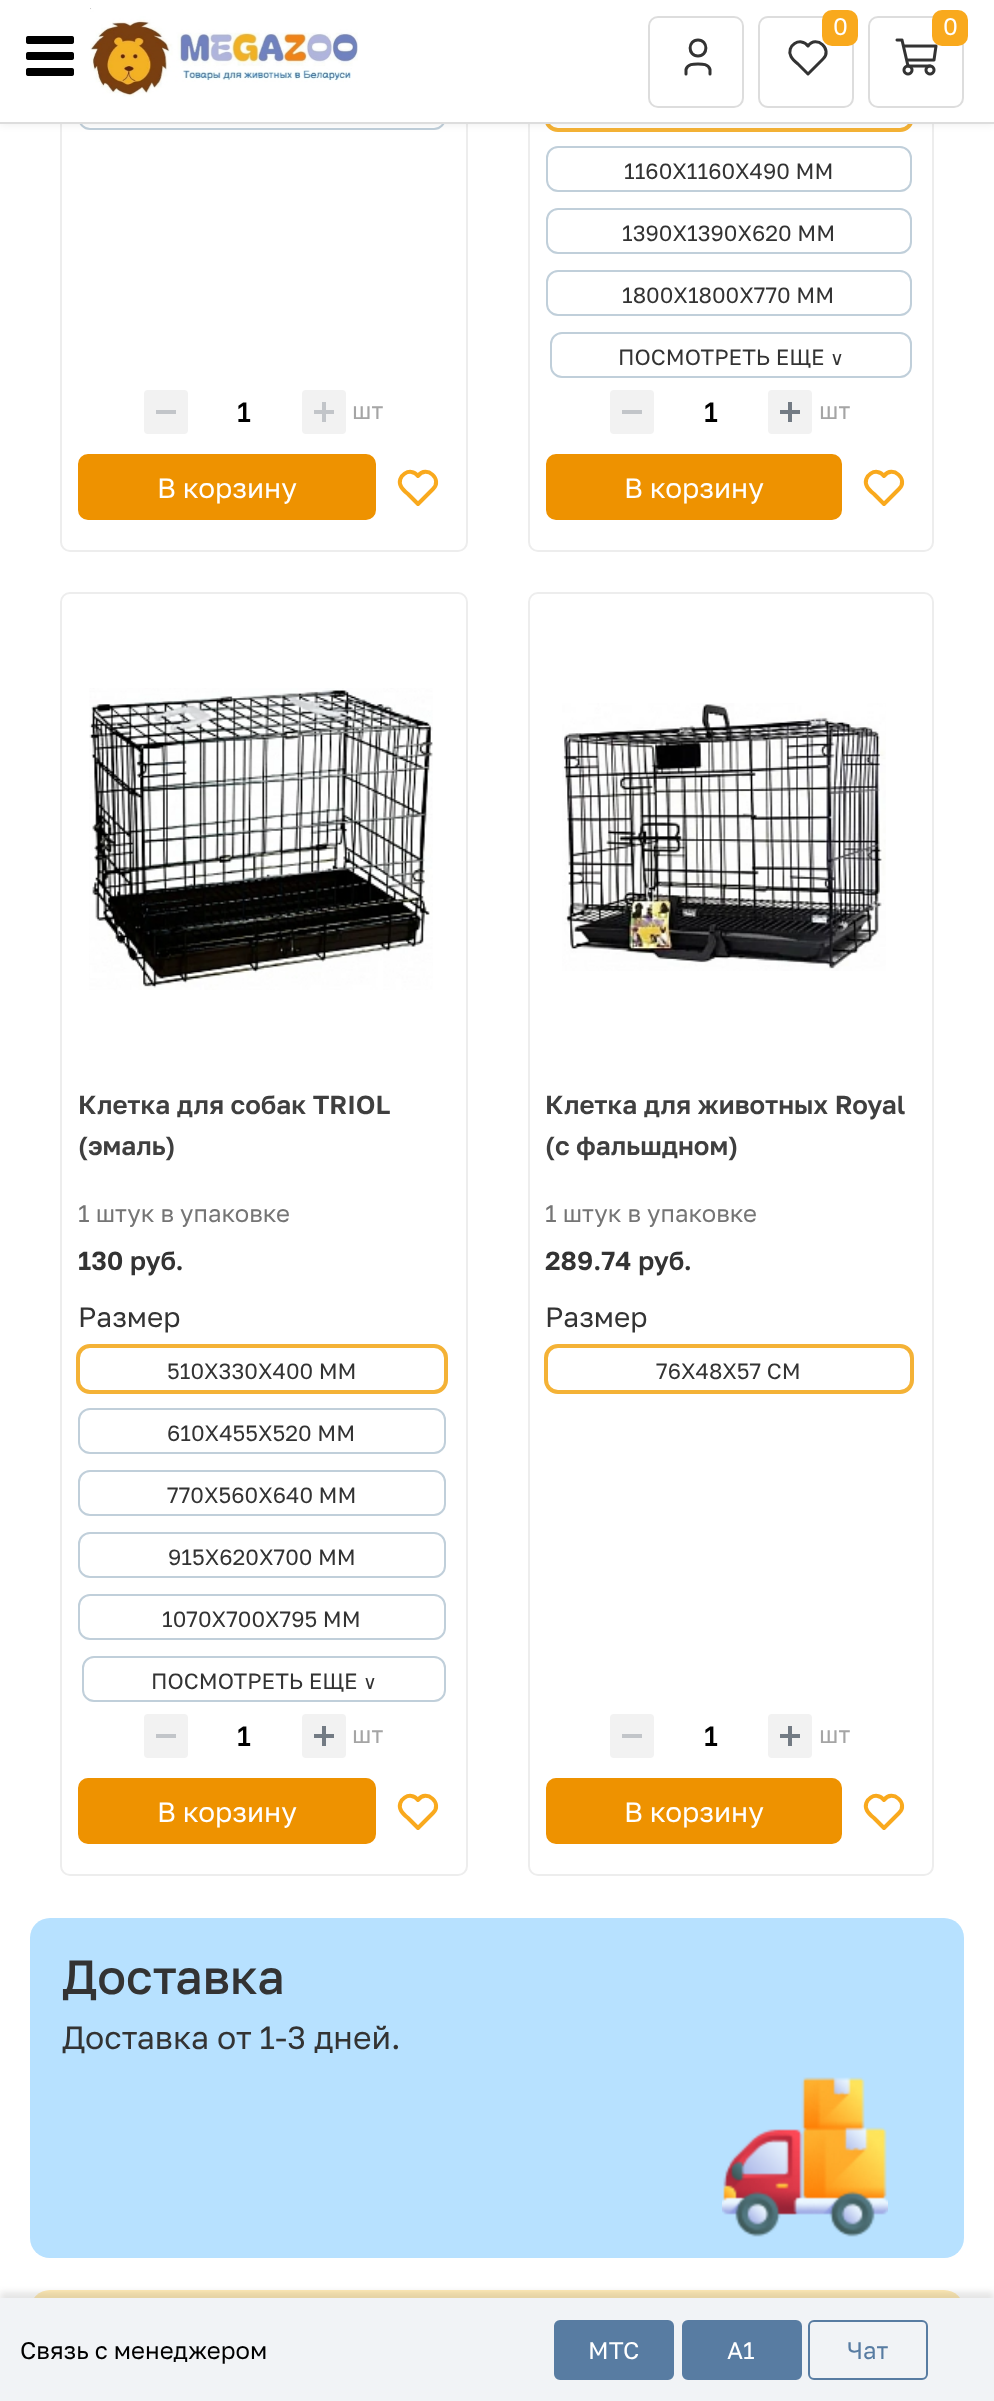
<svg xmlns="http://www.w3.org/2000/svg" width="994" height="2401">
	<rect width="100%" height="100%" fill="#FFFFFF" />
	<rect x="61" y="-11" width="406" height="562" rx="9" fill="none" stroke="#EDEDED" stroke-width="2" />
	<rect x="79" y="85" width="366" height="44" rx="11" fill="none" stroke="#C0CFDA" stroke-width="2" />
	<rect x="529" y="-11" width="404" height="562" rx="9" fill="none" stroke="#EDEDED" stroke-width="2" />
	<rect x="546" y="84" width="366" height="46" rx="12" fill="none" stroke="#F4B236" stroke-width="4" />
	<rect x="0" y="0" width="994" height="124" fill="#000000" fill-opacity="0.08" filter="blur(4px)" />
	<rect x="0" y="0" width="994" height="122" fill="#FFFFFF" />
	<rect x="0" y="122" width="994" height="2" fill="#DDDDDD" />
	<image x="90" y="8" width="268" height="89" href="assets/img1.png" />
	<rect x="649" y="17" width="94" height="90" rx="9" fill="none" stroke="#DDDDDD" stroke-width="2" />
	<path d="M698 56C708.5 56 708.5 40 698 40C687.5 40 687.5 56 698 56ZM686 74V69.5C687.5 64 693.5 64 698 64C702.5 64 708.5 64 710 69.5V74" fill="none" stroke="#333333" stroke-width="3" stroke-linecap="round" stroke-linejoin="round" />
	<rect x="759" y="17" width="94" height="90" rx="9" fill="none" stroke="#DDDDDD" stroke-width="2" />
	<path d="M823 59L808 74L798 64C795.5 62 792.5 59.5 791 56.5C785.5 46 800.5 36 808 46C816.5 34.5 833 49.5 823 59" fill="none" stroke="#333333" stroke-width="3" stroke-linecap="round" stroke-linejoin="round" />
	<rect x="822" y="10" width="36" height="36" rx="10" fill="#F9A91D" />
	<text x="833" y="35" font-family="Golos Text" font-size="24" fill="#FFFFFF">0</text>
	<rect x="869" y="17" width="94" height="90" rx="9" fill="none" stroke="#DDDDDD" stroke-width="2" />
	<image x="895" y="38" width="43" height="38" href="assets/img2.png" />
	<rect x="932" y="10" width="36" height="36" rx="10" fill="#F9A91D" />
	<text x="943" y="35" font-family="Golos Text" font-size="24" fill="#FFFFFF">0</text>
	<rect x="144" y="390" width="44" height="44" rx="4" fill="#F2F2F2" />
	<rect x="156" y="410" width="20" height="4" fill="#C2C5C9" />
	<text x="237" y="422" font-family="Golos Text" font-size="28" font-weight="500" fill="#000000">1</text>
	<rect x="302" y="390" width="44" height="44" rx="4" fill="#F2F2F2" />
	<image x="314" y="402" width="20" height="20" href="assets/img3.png" />
	<text x="352" y="419" font-family="Golos Text" font-size="24" fill="#A5A5A5">шт</text>
	<rect x="79" y="455" width="296" height="64" rx="9" fill="#EE9200" stroke="#EE9200" stroke-width="2" />
	<text x="157" y="498" font-family="Golos Text" font-size="28" fill="#FFFFFF">В корзину</text>
	<path d="M433 489L418 504L408 494C405.5 492 402.5 489.5 401 486.5C395.5 476 410.5 466 418 476C426.5 464.5 443 479.5 433 489" fill="none" stroke="#F9A91D" stroke-width="4" stroke-linecap="round" stroke-linejoin="round" />
	<rect x="547" y="147" width="364" height="44" rx="11" fill="none" stroke="#C0CFDA" stroke-width="2" />
	<text x="624" y="179" font-family="Golos Text" font-size="22" fill="#333333">1160Х1160Х490 ММ</text>
	<rect x="547" y="209" width="364" height="44" rx="11" fill="none" stroke="#C0CFDA" stroke-width="2" />
	<text x="622" y="241" font-family="Golos Text" font-size="22" fill="#333333">1390Х1390Х620 ММ</text>
	<rect x="547" y="271" width="364" height="44" rx="11" fill="none" stroke="#C0CFDA" stroke-width="2" />
	<text x="622" y="303" font-family="Golos Text" font-size="22" fill="#333333">1800Х1800Х770 ММ</text>
	<rect x="551" y="333" width="360" height="44" rx="11" fill="none" stroke="#C0CFDA" stroke-width="2" />
	<text x="618" y="365" font-family="Golos Text" font-size="22" fill="#333333">ПОСМОТРЕТЬ ЕЩЕ</text>
	<text x="830" y="365" font-family="DejaVu Sans" font-size="19" fill="#333333">∨</text>
	<rect x="610" y="390" width="44" height="44" rx="4" fill="#F2F2F2" />
	<rect x="622" y="410" width="20" height="4" fill="#C2C5C9" />
	<text x="704" y="422" font-family="Golos Text" font-size="28" font-weight="500" fill="#000000">1</text>
	<rect x="768" y="390" width="44" height="44" rx="4" fill="#F2F2F2" />
	<image x="780" y="402" width="20" height="20" href="assets/img4.png" />
	<text x="819" y="419" font-family="Golos Text" font-size="24" fill="#A5A5A5">шт</text>
	<rect x="547" y="455" width="294" height="64" rx="9" fill="#EE9200" stroke="#EE9200" stroke-width="2" />
	<text x="624" y="498" font-family="Golos Text" font-size="28" fill="#FFFFFF">В корзину</text>
	<path d="M899 489L884 504L874 494C871.5 492 868.5 489.5 867 486.5C861.5 476 876.5 466 884 476C892.5 464.5 909 479.5 899 489" fill="none" stroke="#F9A91D" stroke-width="4" stroke-linecap="round" stroke-linejoin="round" />
	<rect x="61" y="593" width="406" height="1282" rx="9" fill="none" stroke="#EDEDED" stroke-width="2" />
	<image x="89" y="688" width="344" height="302" href="assets/img5.png" />
	<g font-family="Golos Text" font-size="26" font-weight="600" fill="#3F3F3F">
		<text x="78" y="1114">Клетка для собак TRIOL</text>
		<text x="78" y="1155">(эмаль)</text>
	</g>
	<text x="78" y="1222" font-family="Golos Text" font-size="24" fill="#757575">1 штук в упаковке</text>
	<text x="78" y="1270" font-family="Golos Text" font-size="26" font-weight="600" fill="#333333">130 руб.</text>
	<text x="78" y="1327" font-family="Golos Text" font-size="28" fill="#333333">Размер</text>
	<rect x="78" y="1346" width="368" height="46" rx="12" fill="none" stroke="#F4B236" stroke-width="4" />
	<text x="167" y="1379" font-family="Golos Text" font-size="22" fill="#333333">510Х330Х400 ММ</text>
	<rect x="79" y="1409" width="366" height="44" rx="11" fill="none" stroke="#C0CFDA" stroke-width="2" />
	<text x="167" y="1441" font-family="Golos Text" font-size="22" fill="#333333">610Х455Х520 ММ</text>
	<rect x="79" y="1471" width="366" height="44" rx="11" fill="none" stroke="#C0CFDA" stroke-width="2" />
	<text x="167" y="1503" font-family="Golos Text" font-size="22" fill="#333333">770Х560Х640 ММ</text>
	<rect x="79" y="1533" width="366" height="44" rx="11" fill="none" stroke="#C0CFDA" stroke-width="2" />
	<text x="168" y="1565" font-family="Golos Text" font-size="22" fill="#333333">915Х620Х700 ММ</text>
	<rect x="79" y="1595" width="366" height="44" rx="11" fill="none" stroke="#C0CFDA" stroke-width="2" />
	<text x="162" y="1627" font-family="Golos Text" font-size="22" fill="#333333">1070Х700Х795 ММ</text>
	<rect x="83" y="1657" width="362" height="44" rx="11" fill="none" stroke="#C0CFDA" stroke-width="2" />
	<text x="151" y="1689" font-family="Golos Text" font-size="22" fill="#333333">ПОСМОТРЕТЬ ЕЩЕ</text>
	<text x="363" y="1689" font-family="DejaVu Sans" font-size="19" fill="#333333">∨</text>
	<rect x="144" y="1714" width="44" height="44" rx="4" fill="#F2F2F2" />
	<rect x="156" y="1734" width="20" height="4" fill="#C2C5C9" />
	<text x="237" y="1746" font-family="Golos Text" font-size="28" font-weight="500" fill="#000000">1</text>
	<rect x="302" y="1714" width="44" height="44" rx="4" fill="#F2F2F2" />
	<image x="314" y="1726" width="20" height="20" href="assets/img4.png" />
	<text x="352" y="1743" font-family="Golos Text" font-size="24" fill="#A5A5A5">шт</text>
	<rect x="79" y="1779" width="296" height="64" rx="9" fill="#EE9200" stroke="#EE9200" stroke-width="2" />
	<text x="157" y="1822" font-family="Golos Text" font-size="28" fill="#FFFFFF">В корзину</text>
	<path d="M433 1813L418 1828L408 1818C405.5 1816 402.5 1813.5 401 1810.5C395.5 1800 410.5 1790 418 1800C426.5 1788.5 443 1803.5 433 1813" fill="none" stroke="#F9A91D" stroke-width="4" stroke-linecap="round" stroke-linejoin="round" />
	<rect x="529" y="593" width="404" height="1282" rx="9" fill="none" stroke="#EDEDED" stroke-width="2" />
	<image x="562" y="703" width="324" height="268" href="assets/img6.png" />
	<g font-family="Golos Text" font-size="26" font-weight="600" fill="#3F3F3F">
		<text x="545" y="1114">Клетка для животных Royal</text>
		<text x="545" y="1155">(с фальшдном)</text>
	</g>
	<text x="545" y="1222" font-family="Golos Text" font-size="24" fill="#757575">1 штук в упаковке</text>
	<text x="545" y="1270" font-family="Golos Text" font-size="26" font-weight="600" fill="#333333">289.74 руб.</text>
	<text x="545" y="1327" font-family="Golos Text" font-size="28" fill="#333333">Размер</text>
	<rect x="546" y="1346" width="366" height="46" rx="12" fill="none" stroke="#F4B236" stroke-width="4" />
	<text x="656" y="1379" font-family="Golos Text" font-size="22" fill="#333333">76Х48Х57 СМ</text>
	<rect x="610" y="1714" width="44" height="44" rx="4" fill="#F2F2F2" />
	<rect x="622" y="1734" width="20" height="4" fill="#C2C5C9" />
	<text x="704" y="1746" font-family="Golos Text" font-size="28" font-weight="500" fill="#000000">1</text>
	<rect x="768" y="1714" width="44" height="44" rx="4" fill="#F2F2F2" />
	<image x="780" y="1726" width="20" height="20" href="assets/img4.png" />
	<text x="819" y="1743" font-family="Golos Text" font-size="24" fill="#A5A5A5">шт</text>
	<rect x="547" y="1779" width="294" height="64" rx="9" fill="#EE9200" stroke="#EE9200" stroke-width="2" />
	<text x="624" y="1822" font-family="Golos Text" font-size="28" fill="#FFFFFF">В корзину</text>
	<path d="M899 1813L884 1828L874 1818C871.5 1816 868.5 1813.5 867 1810.5C861.5 1800 876.5 1790 884 1800C892.5 1788.5 909 1803.5 899 1813" fill="none" stroke="#F9A91D" stroke-width="4" stroke-linecap="round" stroke-linejoin="round" />
	<rect x="30" y="1918" width="934" height="340" rx="20" fill="#B7E1FF" />
	<image x="722" y="2077" width="166" height="160" href="assets/img7.png" />
	<text x="62" y="1994" font-family="Golos Text" font-size="48" font-weight="500" fill="#333333">Доставка</text>
	<text x="62" y="2049" font-family="Golos Text" font-size="32" fill="#333333">Доставка от 1-3 дней.</text>
	<rect x="30" y="2290" width="934" height="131" rx="20" fill="#FFEBB7" />
	<rect x="0" y="2292" width="994" height="104" fill="#040303" fill-opacity="0.1" filter="blur(3px)" />
	<rect x="0" y="2298" width="994" height="103" fill="#F1F3F6" />
	<text x="20" y="2359" font-family="Golos Text" font-size="24" fill="#000000">Связь с менеджером</text>
	<rect x="555" y="2321" width="118" height="58" rx="5" fill="#587CA2" stroke="#587CA2" stroke-width="2" />
	<text x="588" y="2359" font-family="Golos Text" font-size="24" fill="#FFFFFF">МТС</text>
	<rect x="683" y="2321" width="118" height="58" rx="5" fill="#587CA2" stroke="#587CA2" stroke-width="2" />
	<text x="727" y="2359" font-family="Golos Text" font-size="24" fill="#FFFFFF">A1</text>
	<rect x="809" y="2321" width="118" height="58" rx="5" fill="none" stroke="#587CA2" stroke-width="2" />
	<text x="847" y="2359" font-family="Golos Text" font-size="24" fill="#587CA2">Чат</text>
	<image x="26" y="36" width="48" height="40" href="assets/img8.png" />
</svg>
